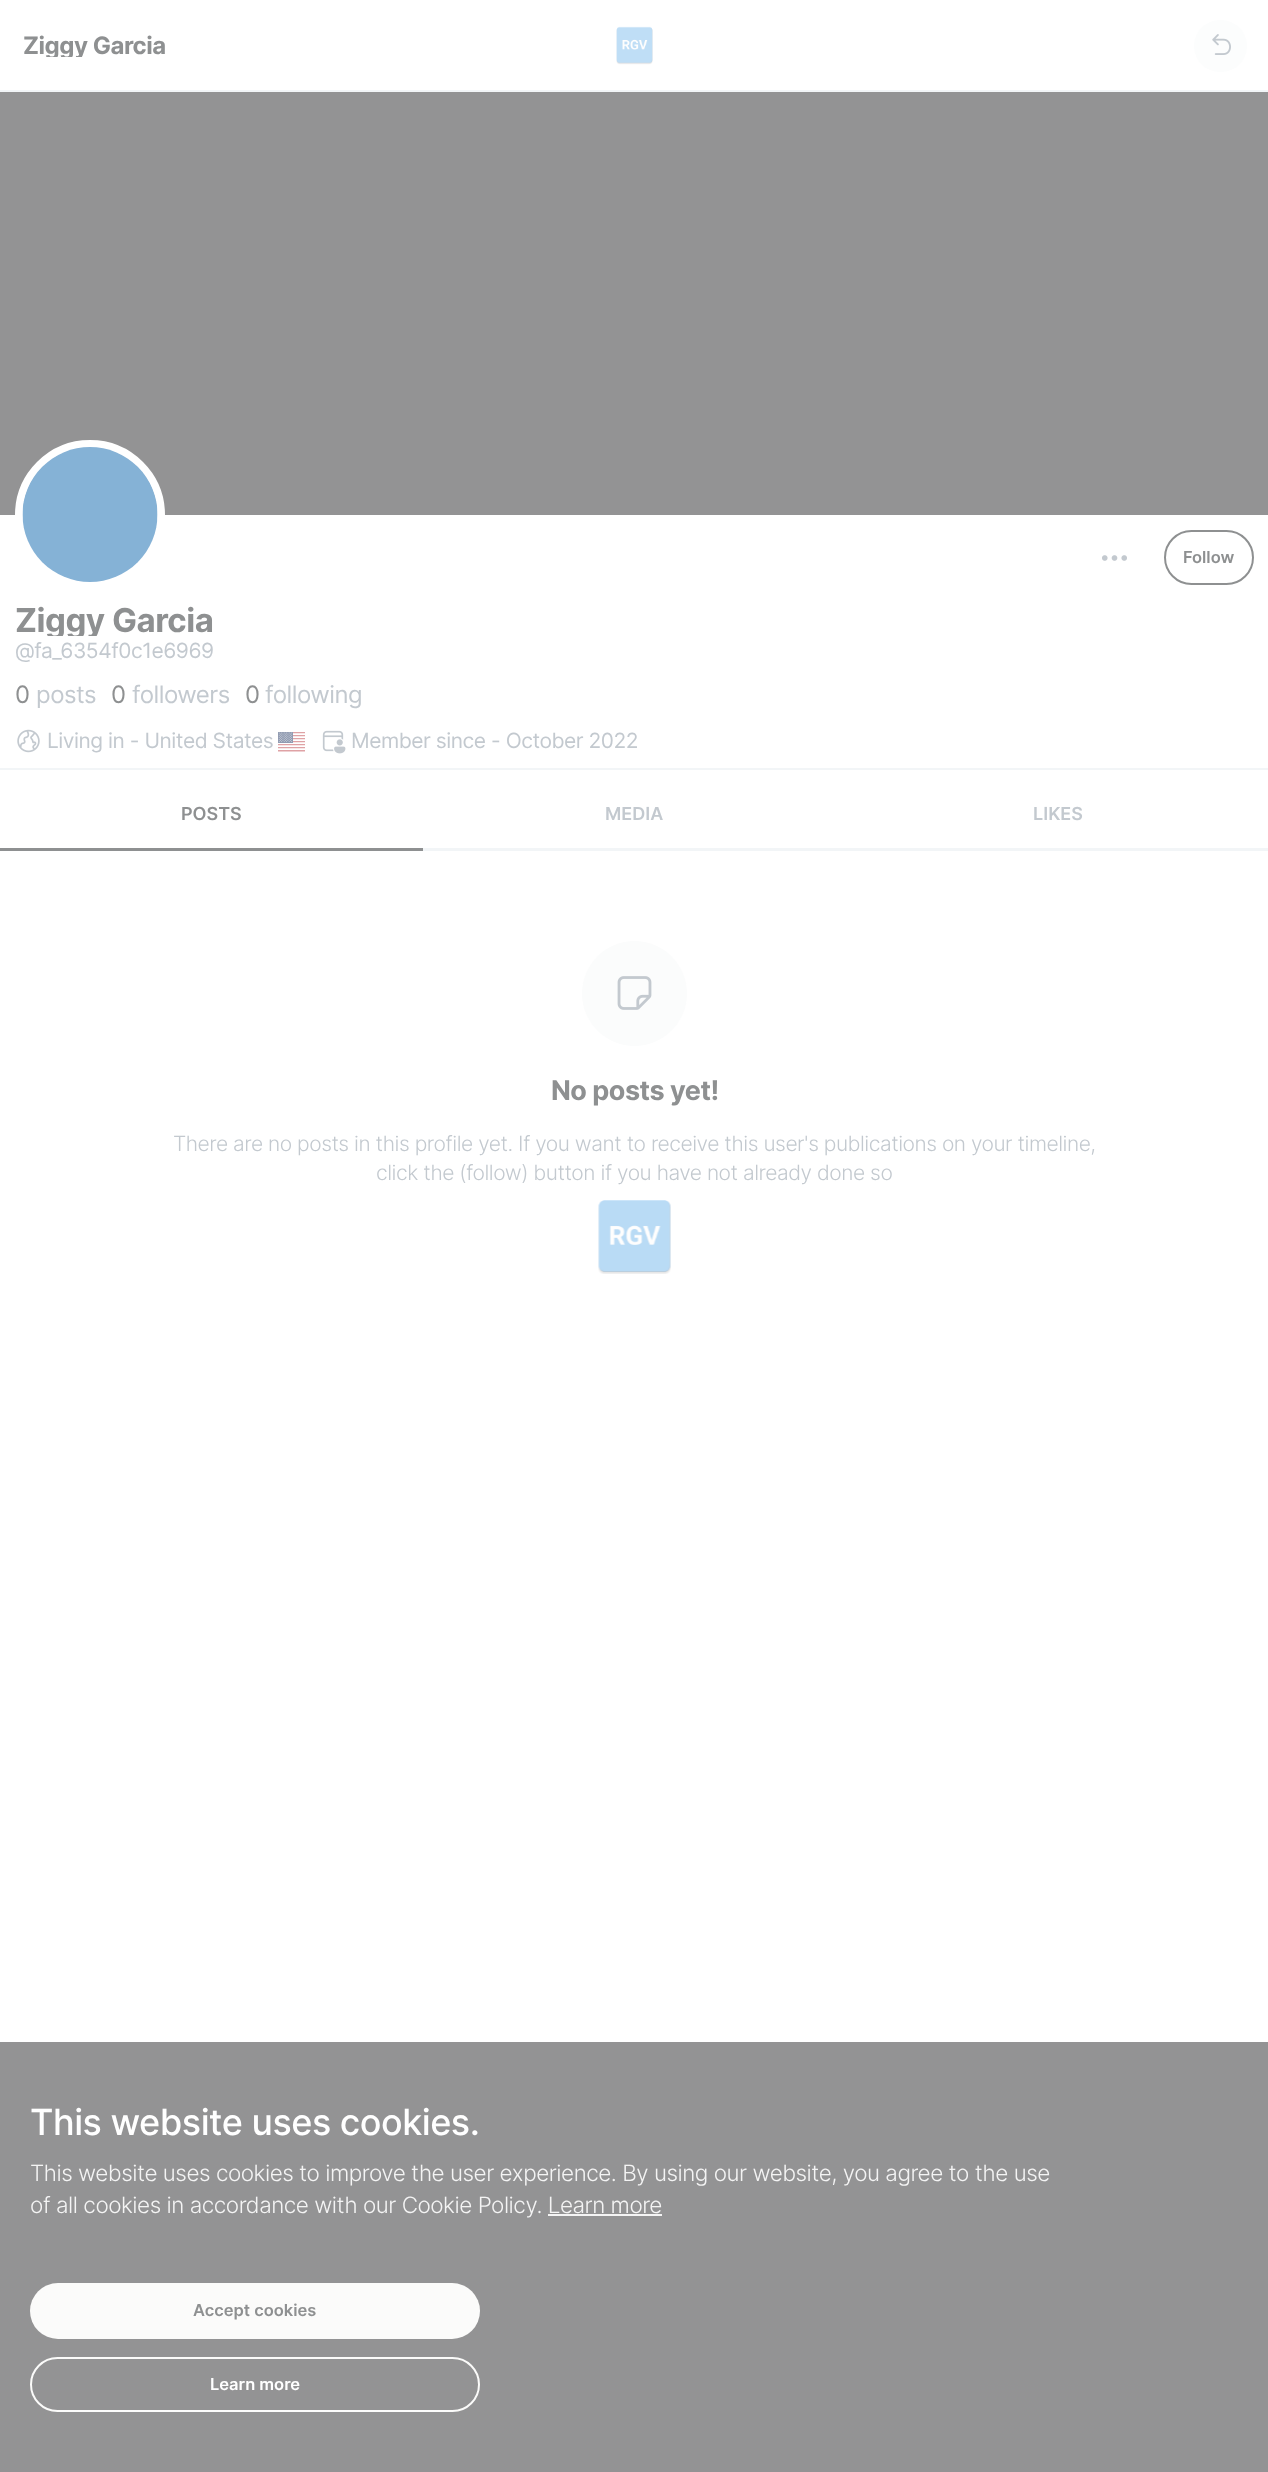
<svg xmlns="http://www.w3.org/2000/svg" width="1268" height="2472">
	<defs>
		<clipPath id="clip1"><rect x="23" y="33" width="142" height="24" /></clipPath>
		<clipPath id="clip2"><rect x="15" y="603" width="198" height="33" /></clipPath>
	</defs>
	<rect width="100%" height="100%" fill="#FFFFFF" />
	<rect x="0" y="90" width="1268" height="2" fill="#F2F5F7" />
	<g clip-path="url(#clip1)">
		<text x="23" y="54" font-family="Inter" font-size="24" font-weight="700" letter-spacing="-0.48" fill="#8E9091">Ziggy Garcia</text>
	</g>
	<image x="616" y="26" width="37" height="39" href="assets/img1.png" />
	<rect x="1194" y="20" width="53" height="52" rx="26" fill="#FCFDFD" />
	<image x="1212" y="34" width="19" height="21" href="assets/img2.png" />
	<rect x="0" y="92" width="1268" height="423" fill="#939394" />
	<circle cx="90" cy="515" r="71" fill="none" stroke="#FFFFFF" stroke-width="8" />
	<image x="22" y="447" width="136" height="135" href="assets/img3.png" />
	<image x="1102" y="555" width="25" height="6" href="assets/img4.png" />
	<rect x="1165" y="531" width="88" height="53" rx="26.5" fill="none" stroke="#8E9091" stroke-width="2" />
	<text x="1183" y="563" font-family="Inter" font-size="16.5" font-weight="600" fill="#8E9091">Follow</text>
	<g clip-path="url(#clip2)">
		<text x="15" y="632" font-family="Inter" font-size="33" font-weight="700" letter-spacing="-0.48" fill="#8E9091">Ziggy Garcia</text>
	</g>
	<text x="15" y="658" font-family="Inter" font-size="21" letter-spacing="-0.48" fill="#C3C9CF">@fa_6354f0c1e6969</text>
	<text x="15" y="703" font-family="Inter" font-size="24" letter-spacing="-0.48" fill="#8E9091">0</text>
	<text x="36" y="703" font-family="Inter" font-size="24" letter-spacing="-0.48" fill="#C3C9CF">posts</text>
	<text x="111" y="703" font-family="Inter" font-size="24" letter-spacing="-0.48" fill="#8E9091">0</text>
	<text x="132" y="703" font-family="Inter" font-size="24" letter-spacing="-0.48" fill="#C3C9CF">followers</text>
	<text x="245" y="703" font-family="Inter" font-size="24" letter-spacing="-0.48" fill="#8E9091">0</text>
	<text x="265" y="703" font-family="Inter" font-size="24" letter-spacing="-0.48" fill="#C3C9CF">following</text>
	<rect x="0" y="768" width="1268" height="2" fill="#F2F5F7" />
	<image x="17" y="729" width="23" height="24" href="assets/img5.png" />
	<text x="47" y="748" font-family="Inter" font-size="21" letter-spacing="-0.48" fill="#C3C9CF">Living in - United States</text>
	<image x="278" y="732" width="27" height="20" href="assets/img6.png" />
	<image x="322" y="730" width="24" height="24" href="assets/img7.png" />
	<text x="351" y="748" font-family="Inter" font-size="21" letter-spacing="-0.48" fill="#C3C9CF">Member since - October 2022</text>
	<text x="181" y="820" font-family="Inter" font-size="18" font-weight="600" fill="#8E9091">POSTS</text>
	<rect x="0" y="848" width="423" height="3" fill="#8E9091" />
	<text x="605" y="820" font-family="Inter" font-size="18" font-weight="600" fill="#C3C9CF">MEDIA</text>
	<rect x="423" y="848" width="845" height="3" fill="#F2F5F7" />
	<text x="1033" y="820" font-family="Inter" font-size="18" font-weight="600" fill="#C3C9CF">LIKES</text>
	<circle cx="634.5" cy="993.5" r="52.5" fill="#FBFCFC" />
	<image x="617" y="976" width="35" height="34" href="assets/img8.png" />
	<text x="551" y="1100" font-family="Inter" font-size="27" font-weight="700" letter-spacing="-0.48" fill="#8E9091">No posts yet!</text>
	<g font-family="Inter" font-size="21" font-weight="300" letter-spacing="-0.48" fill="#C3C9CF">
		<text x="173" y="1151">There are no posts in this profile yet. If you want to receive this user's publications on your timeline,</text>
		<text x="376" y="1180">click the (follow) button if you have not already done so</text>
	</g>
	<image x="598" y="1200" width="73" height="74" href="assets/img9.png" />
	<rect x="0" y="2042" width="1268" height="430" fill="#939394" />
	<text x="30" y="2135" font-family="Inter" font-size="36" font-weight="500" letter-spacing="-0.48" fill="#FFFFFF">This website uses cookies.</text>
	<g font-family="Inter" font-size="22.5" font-weight="300" letter-spacing="-0.48" fill="#F4F4F4">
		<text x="30" y="2181">This website uses cookies to improve the user experience. By using our website, you agree to the use</text>
		<text x="30" y="2213">of all cookies in accordance with our Cookie Policy. Learn more</text>
	</g>
	<rect x="548" y="2214" width="114" height="2" fill="#F4F4F4" />
	<rect x="30" y="2283" width="450" height="56" rx="28" fill="#FBFBFA" />
	<text x="193" y="2316" font-family="Inter" font-size="16.5" font-weight="600" fill="#8E9091">Accept cookies</text>
	<rect x="31" y="2358" width="448" height="53" rx="26.5" fill="none" stroke="#FBFBFA" stroke-width="2" />
	<text x="210" y="2390" font-family="Inter" font-size="16.5" font-weight="600" fill="#FFFFFF">Learn more</text>
</svg>
